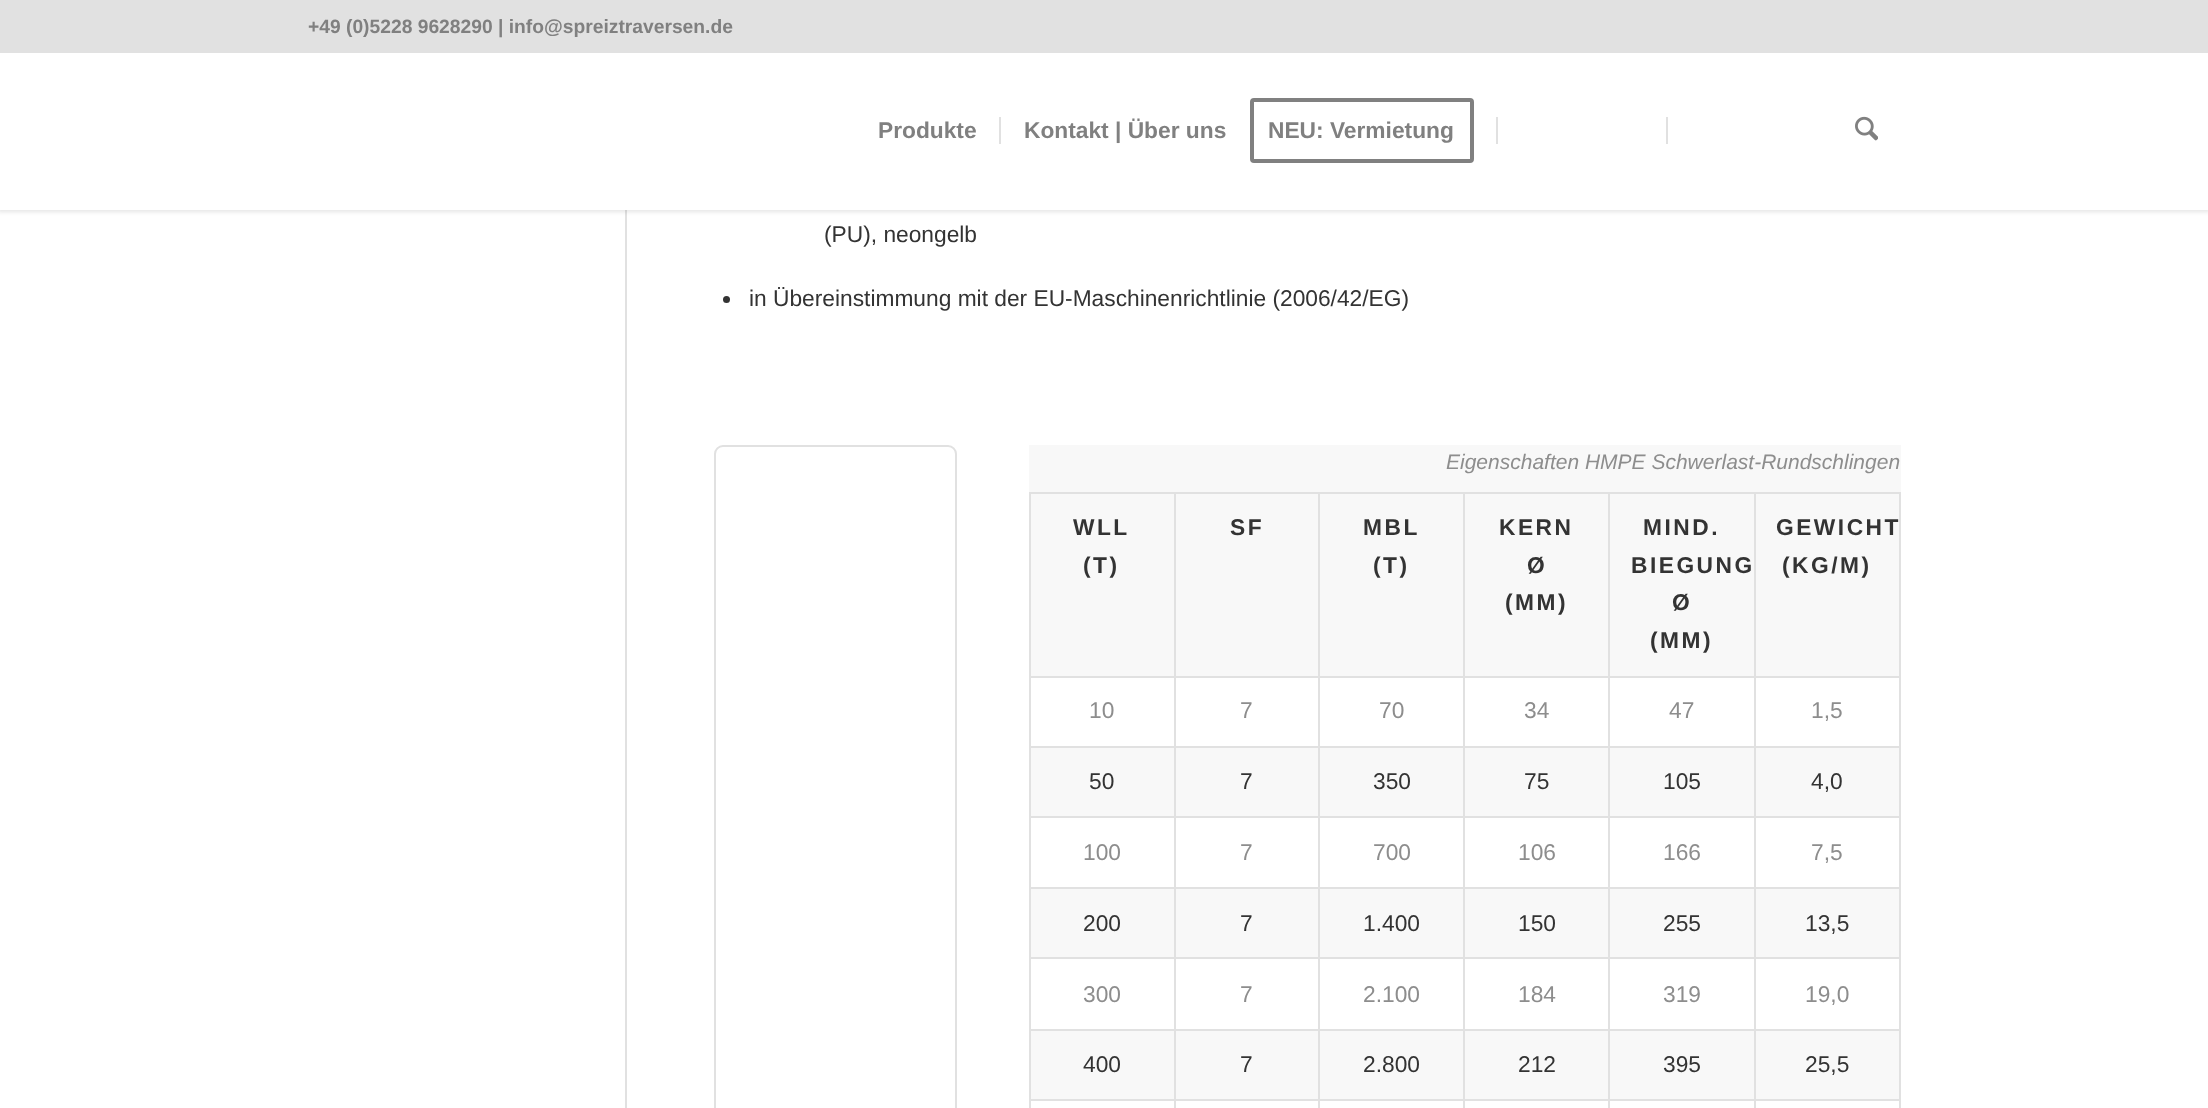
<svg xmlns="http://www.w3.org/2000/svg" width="2208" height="1108">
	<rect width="100%" height="100%" fill="#FFFFFF" />
	<rect x="625" y="210" width="2" height="898" fill="#E1E1E1" />
	<rect x="-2" y="-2" width="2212" height="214" fill="#000000" fill-opacity="0.1" filter="blur(2px)" />
	<rect x="0" y="0" width="2208" height="53" fill="#E1E1E1" />
	<text x="308" y="33" font-family="Liberation Sans" font-size="19.25" font-weight="700" fill="#808080">+49 (0)5228 9628290 | info@spreiztraversen.de</text>
	<rect x="0" y="53" width="2208" height="157" fill="#FFFFFF" />
	<g font-family="Liberation Sans" font-size="22.75" font-weight="700" fill="#808080">
		<text x="878" y="138">Produkte</text>
		<text x="1024" y="138">Kontakt | Über uns</text>
	</g>
	<rect x="999" y="117" width="2" height="27" fill="#E1E1E1" />
	<rect x="1252" y="100" width="220" height="61" rx="2" fill="none" stroke="#808080" stroke-width="4" />
	<text x="1268" y="138" font-family="Liberation Sans" font-size="22.75" font-weight="700" fill="#808080">NEU: Vermietung</text>
	<rect x="1496" y="117" width="2" height="27" fill="#E1E1E1" />
	<rect x="1666" y="117" width="2" height="27" fill="#E1E1E1" />
	<image x="1855" y="116" width="23" height="25" href="assets/img1.png" />
	<text x="824" y="242" font-family="Liberation Sans" font-size="22.75" fill="#333333">(PU), neongelb</text>
	<circle cx="726.5" cy="299.5" r="3.5" fill="#333333" />
	<text x="749" y="306" font-family="Liberation Sans" font-size="22.75" fill="#333333">in Übereinstimmung mit der EU-Maschinenrichtlinie (2006/42/EG)</text>
	<rect x="715" y="446" width="241" height="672" rx="8" fill="none" stroke="#E1E1E1" stroke-width="2" />
	<rect x="1029" y="445" width="872" height="654" fill="#F8F8F8" />
	<text x="1446" y="469" font-family="Liberation Sans" font-size="21" font-style="italic" fill="#8D8D8D">Eigenschaften HMPE Schwerlast-Rundschlingen</text>
	<rect x="1029" y="492" width="872" height="2" fill="#E1E1E1" />
	<rect x="1899" y="676" width="2" height="432" fill="#E1E1E1" />
	<rect x="1899" y="492" width="2" height="185" fill="#E1E1E1" />
	<rect x="1031" y="678" width="868" height="68" fill="#FFFFFF" />
	<rect x="1031" y="818" width="868" height="69" fill="#FFFFFF" />
	<rect x="1031" y="959" width="868" height="70" fill="#FFFFFF" />
	<rect x="1754" y="1099" width="2" height="9" fill="#E1E1E1" />
	<rect x="1754" y="1099" width="147" height="2" fill="#E1E1E1" />
	<rect x="1754" y="1029" width="2" height="72" fill="#E1E1E1" />
	<rect x="1754" y="1029" width="147" height="2" fill="#E1E1E1" />
	<rect x="1754" y="957" width="2" height="74" fill="#E1E1E1" />
	<rect x="1754" y="957" width="147" height="2" fill="#E1E1E1" />
	<rect x="1754" y="887" width="2" height="72" fill="#E1E1E1" />
	<rect x="1754" y="887" width="147" height="2" fill="#E1E1E1" />
	<rect x="1754" y="816" width="2" height="73" fill="#E1E1E1" />
	<rect x="1754" y="816" width="147" height="2" fill="#E1E1E1" />
	<rect x="1754" y="746" width="2" height="71" fill="#E1E1E1" />
	<rect x="1754" y="746" width="147" height="2" fill="#E1E1E1" />
	<rect x="1754" y="676" width="2" height="71" fill="#E1E1E1" />
	<rect x="1754" y="676" width="147" height="2" fill="#E1E1E1" />
	<rect x="1754" y="492" width="2" height="185" fill="#E1E1E1" />
	<rect x="1608" y="1099" width="2" height="9" fill="#E1E1E1" />
	<rect x="1608" y="1099" width="147" height="2" fill="#E1E1E1" />
	<rect x="1608" y="1029" width="2" height="72" fill="#E1E1E1" />
	<rect x="1608" y="1029" width="147" height="2" fill="#E1E1E1" />
	<rect x="1608" y="957" width="2" height="74" fill="#E1E1E1" />
	<rect x="1608" y="957" width="147" height="2" fill="#E1E1E1" />
	<rect x="1608" y="887" width="2" height="72" fill="#E1E1E1" />
	<rect x="1608" y="887" width="147" height="2" fill="#E1E1E1" />
	<rect x="1608" y="816" width="2" height="73" fill="#E1E1E1" />
	<rect x="1608" y="816" width="147" height="2" fill="#E1E1E1" />
	<rect x="1608" y="746" width="2" height="71" fill="#E1E1E1" />
	<rect x="1608" y="746" width="147" height="2" fill="#E1E1E1" />
	<rect x="1608" y="676" width="2" height="71" fill="#E1E1E1" />
	<rect x="1608" y="676" width="147" height="2" fill="#E1E1E1" />
	<rect x="1608" y="492" width="2" height="185" fill="#E1E1E1" />
	<rect x="1463" y="1099" width="2" height="9" fill="#E1E1E1" />
	<rect x="1463" y="1099" width="147" height="2" fill="#E1E1E1" />
	<rect x="1463" y="1029" width="2" height="72" fill="#E1E1E1" />
	<rect x="1463" y="1029" width="147" height="2" fill="#E1E1E1" />
	<rect x="1463" y="957" width="2" height="74" fill="#E1E1E1" />
	<rect x="1463" y="957" width="147" height="2" fill="#E1E1E1" />
	<rect x="1463" y="887" width="2" height="72" fill="#E1E1E1" />
	<rect x="1463" y="887" width="147" height="2" fill="#E1E1E1" />
	<rect x="1463" y="816" width="2" height="73" fill="#E1E1E1" />
	<rect x="1463" y="816" width="147" height="2" fill="#E1E1E1" />
	<rect x="1463" y="746" width="2" height="71" fill="#E1E1E1" />
	<rect x="1463" y="746" width="147" height="2" fill="#E1E1E1" />
	<rect x="1463" y="676" width="2" height="71" fill="#E1E1E1" />
	<rect x="1463" y="676" width="147" height="2" fill="#E1E1E1" />
	<rect x="1463" y="492" width="2" height="185" fill="#E1E1E1" />
	<rect x="1318" y="1099" width="2" height="9" fill="#E1E1E1" />
	<rect x="1318" y="1099" width="147" height="2" fill="#E1E1E1" />
	<rect x="1318" y="1029" width="2" height="72" fill="#E1E1E1" />
	<rect x="1318" y="1029" width="147" height="2" fill="#E1E1E1" />
	<rect x="1318" y="957" width="2" height="74" fill="#E1E1E1" />
	<rect x="1318" y="957" width="147" height="2" fill="#E1E1E1" />
	<rect x="1318" y="887" width="2" height="72" fill="#E1E1E1" />
	<rect x="1318" y="887" width="147" height="2" fill="#E1E1E1" />
	<rect x="1318" y="816" width="2" height="73" fill="#E1E1E1" />
	<rect x="1318" y="816" width="147" height="2" fill="#E1E1E1" />
	<rect x="1318" y="746" width="2" height="71" fill="#E1E1E1" />
	<rect x="1318" y="746" width="147" height="2" fill="#E1E1E1" />
	<rect x="1318" y="676" width="2" height="71" fill="#E1E1E1" />
	<rect x="1318" y="676" width="147" height="2" fill="#E1E1E1" />
	<rect x="1318" y="492" width="2" height="185" fill="#E1E1E1" />
	<rect x="1174" y="1099" width="2" height="9" fill="#E1E1E1" />
	<rect x="1174" y="1099" width="146" height="2" fill="#E1E1E1" />
	<rect x="1174" y="1029" width="2" height="72" fill="#E1E1E1" />
	<rect x="1174" y="1029" width="146" height="2" fill="#E1E1E1" />
	<rect x="1174" y="957" width="2" height="74" fill="#E1E1E1" />
	<rect x="1174" y="957" width="146" height="2" fill="#E1E1E1" />
	<rect x="1174" y="887" width="2" height="72" fill="#E1E1E1" />
	<rect x="1174" y="887" width="146" height="2" fill="#E1E1E1" />
	<rect x="1174" y="816" width="2" height="73" fill="#E1E1E1" />
	<rect x="1174" y="816" width="146" height="2" fill="#E1E1E1" />
	<rect x="1174" y="746" width="2" height="71" fill="#E1E1E1" />
	<rect x="1174" y="746" width="146" height="2" fill="#E1E1E1" />
	<rect x="1174" y="676" width="2" height="71" fill="#E1E1E1" />
	<rect x="1174" y="676" width="146" height="2" fill="#E1E1E1" />
	<rect x="1174" y="492" width="2" height="185" fill="#E1E1E1" />
	<rect x="1029" y="1099" width="2" height="9" fill="#E1E1E1" />
	<rect x="1029" y="1099" width="147" height="2" fill="#E1E1E1" />
	<rect x="1029" y="1029" width="2" height="72" fill="#E1E1E1" />
	<rect x="1029" y="1029" width="147" height="2" fill="#E1E1E1" />
	<rect x="1029" y="957" width="2" height="74" fill="#E1E1E1" />
	<rect x="1029" y="957" width="147" height="2" fill="#E1E1E1" />
	<rect x="1029" y="887" width="2" height="72" fill="#E1E1E1" />
	<rect x="1029" y="887" width="147" height="2" fill="#E1E1E1" />
	<rect x="1029" y="816" width="2" height="73" fill="#E1E1E1" />
	<rect x="1029" y="816" width="147" height="2" fill="#E1E1E1" />
	<rect x="1029" y="746" width="2" height="71" fill="#E1E1E1" />
	<rect x="1029" y="746" width="147" height="2" fill="#E1E1E1" />
	<rect x="1029" y="676" width="2" height="71" fill="#E1E1E1" />
	<rect x="1029" y="676" width="147" height="2" fill="#E1E1E1" />
	<rect x="1029" y="492" width="2" height="185" fill="#E1E1E1" />
	<g font-family="Liberation Sans" font-size="22.75" font-weight="700" letter-spacing="2.5" fill="#333333">
		<text x="1073" y="535">WLL</text>
		<text x="1083" y="573">(T)</text>
		<text x="1230" y="535">SF</text>
		<text x="1363" y="535">MBL</text>
		<text x="1373" y="573">(T)</text>
		<text x="1499" y="535">KERN</text>
		<text x="1527" y="573">Ø</text>
		<text x="1505" y="610">(MM)</text>
		<text x="1643" y="535">MIND.</text>
		<text x="1631" y="573">BIEGUNG</text>
		<text x="1672" y="610">Ø</text>
		<text x="1650" y="648">(MM)</text>
		<text x="1776" y="535">GEWICHT</text>
		<text x="1782" y="573">(KG/M)</text>
	</g>
	<g font-family="Liberation Sans" font-size="22.75" fill="#8D8D8D">
		<text x="1089" y="718">10</text>
		<text x="1240" y="718">7</text>
		<text x="1379" y="718">70</text>
		<text x="1524" y="718">34</text>
		<text x="1669" y="718">47</text>
		<text x="1811" y="718">1,5</text>
	</g>
	<g font-family="Liberation Sans" font-size="22.75" fill="#333333">
		<text x="1089" y="789">50</text>
		<text x="1240" y="789">7</text>
		<text x="1373" y="789">350</text>
		<text x="1524" y="789">75</text>
		<text x="1663" y="789">105</text>
		<text x="1811" y="789">4,0</text>
	</g>
	<g font-family="Liberation Sans" font-size="22.75" fill="#8D8D8D">
		<text x="1083" y="860">100</text>
		<text x="1240" y="860">7</text>
		<text x="1373" y="860">700</text>
		<text x="1518" y="860">106</text>
		<text x="1663" y="860">166</text>
		<text x="1811" y="860">7,5</text>
	</g>
	<g font-family="Liberation Sans" font-size="22.75" fill="#333333">
		<text x="1083" y="931">200</text>
		<text x="1240" y="931">7</text>
		<text x="1363" y="931">1.400</text>
		<text x="1518" y="931">150</text>
		<text x="1663" y="931">255</text>
		<text x="1805" y="931">13,5</text>
	</g>
	<g font-family="Liberation Sans" font-size="22.75" fill="#8D8D8D">
		<text x="1083" y="1002">300</text>
		<text x="1240" y="1002">7</text>
		<text x="1363" y="1002">2.100</text>
		<text x="1518" y="1002">184</text>
		<text x="1663" y="1002">319</text>
		<text x="1805" y="1002">19,0</text>
	</g>
	<g font-family="Liberation Sans" font-size="22.75" fill="#333333">
		<text x="1083" y="1072">400</text>
		<text x="1240" y="1072">7</text>
		<text x="1363" y="1072">2.800</text>
		<text x="1518" y="1072">212</text>
		<text x="1663" y="1072">395</text>
		<text x="1805" y="1072">25,5</text>
	</g>
</svg>
